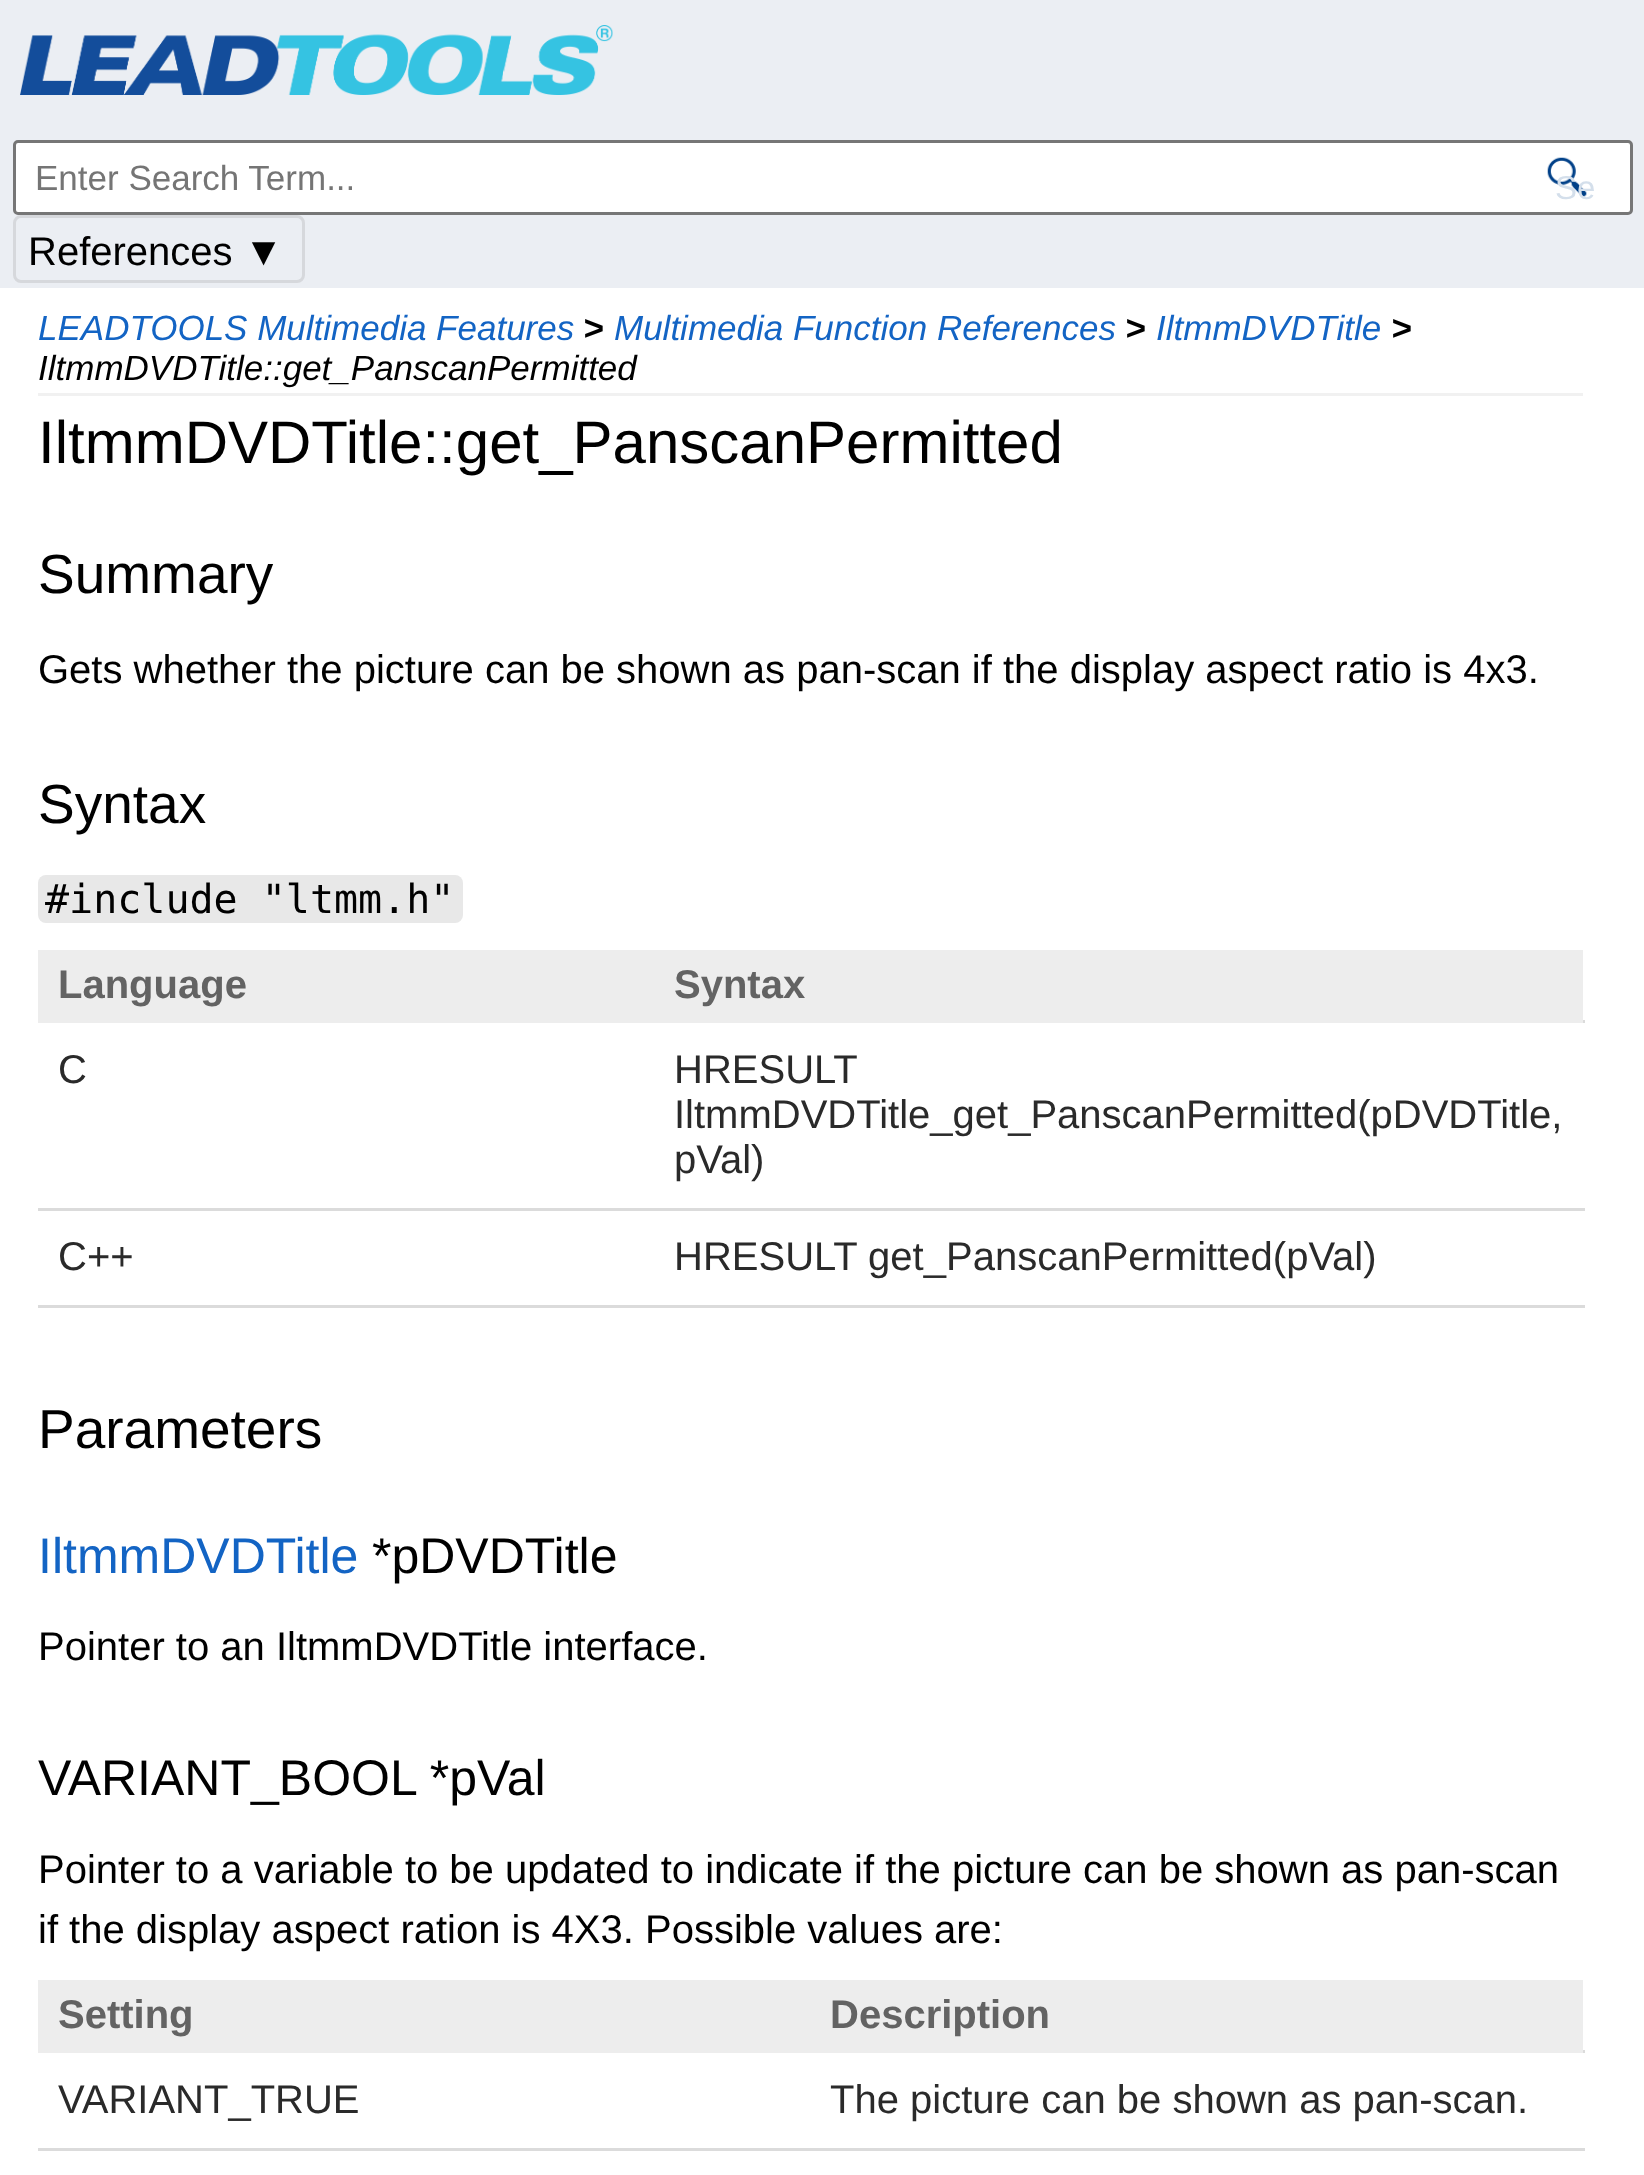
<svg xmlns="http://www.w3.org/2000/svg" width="1644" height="2175">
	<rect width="100%" height="100%" fill="#FFFFFF" />
	<rect x="0" y="0" width="1644" height="288" fill="#EBEEF3" />
	<image x="20" y="25" width="593" height="70" href="assets/img1.png" />
	<rect x="14.5" y="141.5" width="1617" height="72" rx="3.5" fill="#FFFFFF" stroke="#767676" stroke-width="3" />
	<text x="35" y="190" font-family="Liberation Sans" font-size="35" fill="#757575">Enter Search Term...</text>
	<image x="1547" y="157" width="40" height="40" href="assets/img2.png" />
	<text x="1555" y="199" font-family="Liberation Sans" font-size="33" fill="#D4DFEB">Se</text>
	<rect x="14.5" y="216.5" width="289" height="65" rx="6.5" fill="none" stroke="#D6D8DC" stroke-width="3" />
	<text x="28" y="265" font-family="Liberation Sans" font-size="40" fill="#000000">References ▼</text>
	<rect x="38" y="393" width="1545" height="3" fill="#F1F1F1" />
	<text x="38" y="340" font-family="Liberation Sans" font-size="35" font-style="italic" fill="#1364C4">LEADTOOLS Multimedia Features</text>
	<text x="583" y="340" font-family="Liberation Sans" font-size="35" font-weight="700" font-style="italic" fill="#000000">&gt;</text>
	<text x="614" y="340" font-family="Liberation Sans" font-size="35" font-style="italic" fill="#1364C4">Multimedia Function References</text>
	<text x="1125" y="340" font-family="Liberation Sans" font-size="35" font-weight="700" font-style="italic" fill="#000000">&gt;</text>
	<text x="1156" y="340" font-family="Liberation Sans" font-size="35" font-style="italic" fill="#1364C4">IltmmDVDTitle</text>
	<text x="1391" y="340" font-family="Liberation Sans" font-size="35" font-weight="700" font-style="italic" fill="#000000">&gt;</text>
	<text x="38" y="380" font-family="Liberation Sans" font-size="35" font-style="italic" fill="#000000">IltmmDVDTitle::get_PanscanPermitted</text>
	<text x="38" y="463" font-family="Liberation Sans" font-size="60" fill="#000000">IltmmDVDTitle::get_PanscanPermitted</text>
	<text x="38" y="593" font-family="Liberation Sans" font-size="55" fill="#000000">Summary</text>
	<text x="38" y="683" font-family="Liberation Sans" font-size="40" fill="#000000">Gets whether the picture can be shown as pan-scan if the display aspect ratio is 4x3.</text>
	<text x="38" y="823" font-family="Liberation Sans" font-size="55" fill="#000000">Syntax</text>
	<rect x="38" y="875" width="425" height="48" rx="8" fill="#E8E8E8" />
	<text x="45" y="913" font-family="DejaVu Sans Mono" font-size="40" fill="#000000">#include "ltmm.h"</text>
	<rect x="38" y="950" width="1545" height="73" fill="#EDEDED" />
	<text x="58" y="998" font-family="Liberation Sans" font-size="40" font-weight="700" fill="#636363">Language</text>
	<rect x="1583" y="1020" width="2" height="3" fill="#DBDBDB" />
	<text x="674" y="998" font-family="Liberation Sans" font-size="40" font-weight="700" fill="#636363">Syntax</text>
	<text x="58" y="1083" font-family="Liberation Sans" font-size="40" fill="#2A2A2A">C</text>
	<rect x="38" y="1208" width="1547" height="3" fill="#DBDBDB" />
	<g font-family="Liberation Sans" font-size="40" fill="#2A2A2A">
		<text x="674" y="1083">HRESULT</text>
		<text x="674" y="1128">IltmmDVDTitle_get_PanscanPermitted(pDVDTitle,</text>
		<text x="674" y="1173">pVal)</text>
		<text x="58" y="1270">C++</text>
	</g>
	<rect x="38" y="1305" width="1547" height="3" fill="#DBDBDB" />
	<text x="674" y="1270" font-family="Liberation Sans" font-size="40" fill="#2A2A2A">HRESULT get_PanscanPermitted(pVal)</text>
	<text x="38" y="1448" font-family="Liberation Sans" font-size="55" fill="#000000">Parameters</text>
	<text x="38" y="1573" font-family="Liberation Sans" font-size="50" fill="#1364C4">IltmmDVDTitle</text>
	<text x="372" y="1573" font-family="Liberation Sans" font-size="50" fill="#000000">*pDVDTitle</text>
	<text x="38" y="1660" font-family="Liberation Sans" font-size="40" fill="#000000">Pointer to an IltmmDVDTitle interface.</text>
	<text x="38" y="1795" font-family="Liberation Sans" font-size="50" fill="#000000">VARIANT_BOOL *pVal</text>
	<g font-family="Liberation Sans" font-size="40" fill="#000000">
		<text x="38" y="1883">Pointer to a variable to be updated to indicate if the picture can be shown as pan-scan</text>
		<text x="38" y="1943">if the display aspect ration is 4X3. Possible values are:</text>
	</g>
	<rect x="38" y="1980" width="1545" height="73" fill="#EDEDED" />
	<text x="58" y="2028" font-family="Liberation Sans" font-size="40" font-weight="700" fill="#636363">Setting</text>
	<rect x="1583" y="2050" width="2" height="3" fill="#DBDBDB" />
	<text x="830" y="2028" font-family="Liberation Sans" font-size="40" font-weight="700" fill="#636363">Description</text>
	<text x="58" y="2113" font-family="Liberation Sans" font-size="40" fill="#2A2A2A">VARIANT_TRUE</text>
	<rect x="38" y="2148" width="1547" height="3" fill="#DBDBDB" />
	<text x="830" y="2113" font-family="Liberation Sans" font-size="40" fill="#2A2A2A">The picture can be shown as pan-scan.</text>
</svg>
